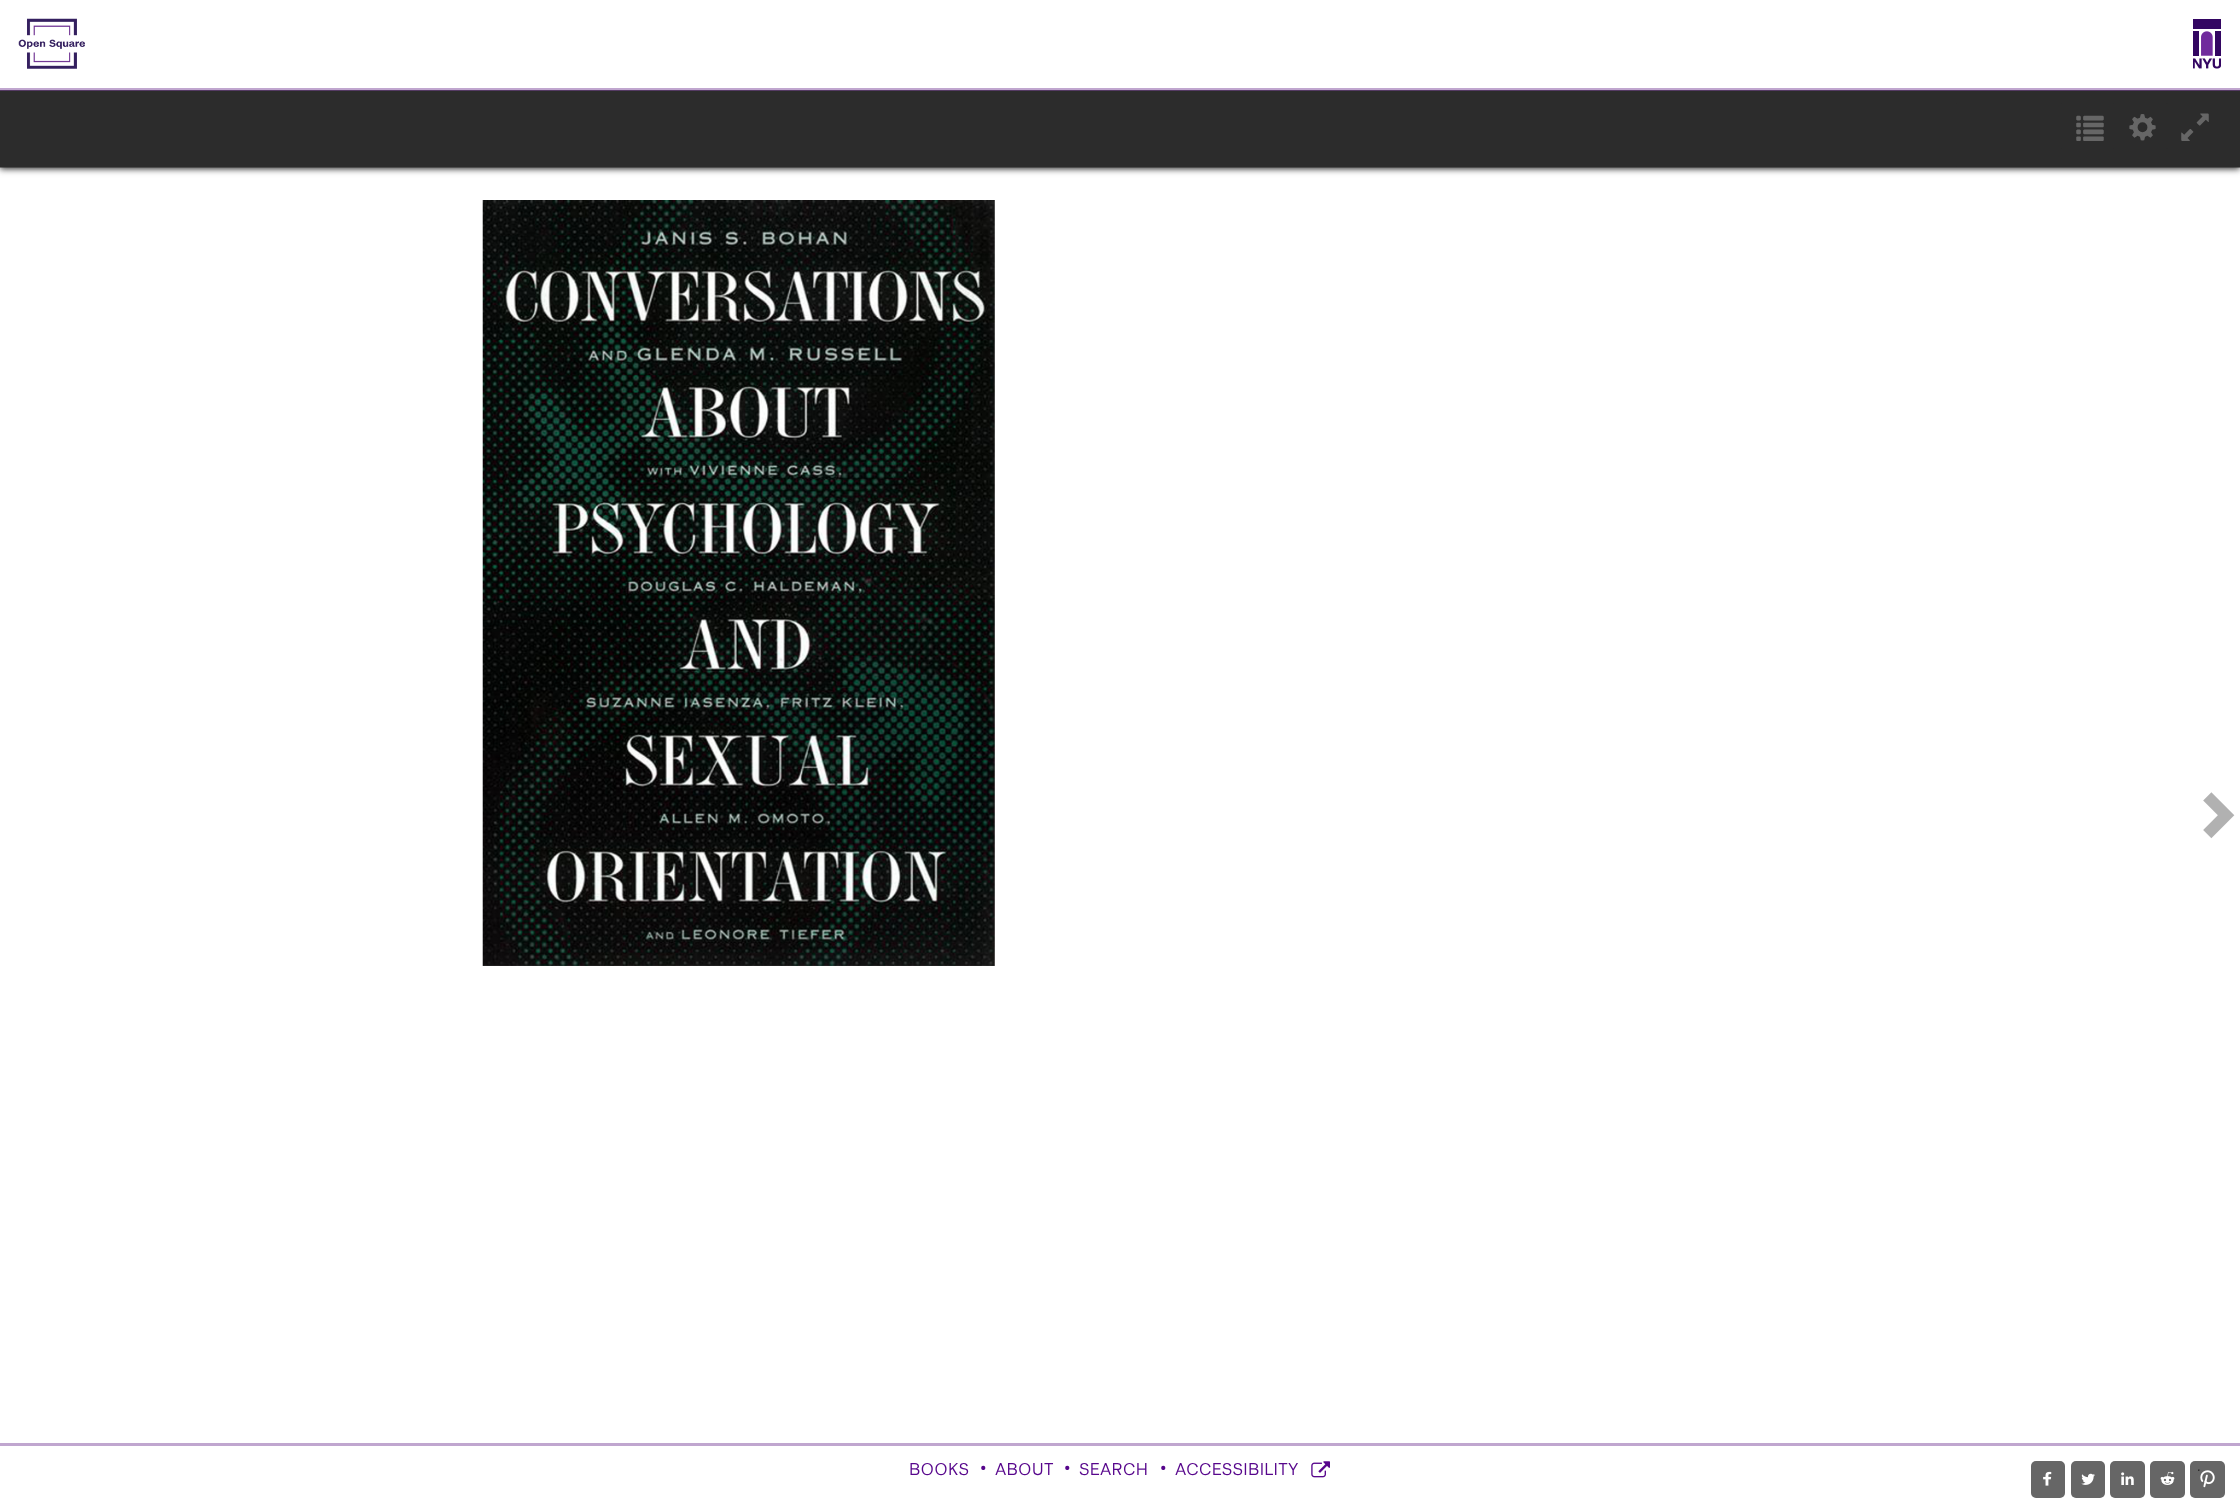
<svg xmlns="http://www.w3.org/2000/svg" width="2240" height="1512">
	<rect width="100%" height="100%" fill="#FFFFFF" />
	<image x="0" y="90" width="2240" height="876" href="assets/img3.png" />
	<rect x="0" y="88" width="2240" height="3" fill="#7F499E" fill-opacity="0.49" />
	<image x="18" y="18" width="67" height="51" href="assets/img1.png" />
	<image x="2193" y="19" width="28" height="50" href="assets/img2.png" />
	<rect x="0" y="1443" width="2240" height="3" fill="#C0A6CF" />
	<text x="909" y="1475" font-family="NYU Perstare" font-size="17" letter-spacing="0.25" fill="#57068C">BOOKS</text>
	<text x="980" y="1475" font-family="NYU Perstare" font-size="20" fill="#57068C">•</text>
	<text x="995" y="1475" font-family="NYU Perstare" font-size="17" letter-spacing="0.25" fill="#57068C">ABOUT</text>
	<text x="1064" y="1475" font-family="NYU Perstare" font-size="20" fill="#57068C">•</text>
	<text x="1079" y="1475" font-family="NYU Perstare" font-size="17" letter-spacing="0.25" fill="#57068C">SEARCH</text>
	<text x="1160" y="1475" font-family="NYU Perstare" font-size="20" fill="#57068C">•</text>
	<text x="1175" y="1475" font-family="NYU Perstare" font-size="17" letter-spacing="0.25" fill="#57068C">ACCESSIBILITY</text>
	<image x="1311" y="1461" width="19" height="17" href="assets/img4.png" />
	<rect x="2031" y="1461" width="34" height="37" rx="5" fill="#666666" />
	<image x="2043" y="1471" width="9" height="15" href="assets/img5.png" />
	<rect x="2071" y="1461" width="34" height="37" rx="5" fill="#666666" />
	<image x="2081" y="1473" width="14" height="12" href="assets/img6.png" />
	<rect x="2110" y="1461" width="35" height="37" rx="5" fill="#666666" />
	<image x="2121" y="1472" width="13" height="13" href="assets/img7.png" />
	<rect x="2150" y="1461" width="35" height="37" rx="5" fill="#666666" />
	<image x="2160" y="1471" width="15" height="14" href="assets/img8.png" />
	<rect x="2190" y="1461" width="35" height="37" rx="5" fill="#666666" />
	<image x="2198" y="1469" width="17" height="19" href="assets/img9.png" />
</svg>
